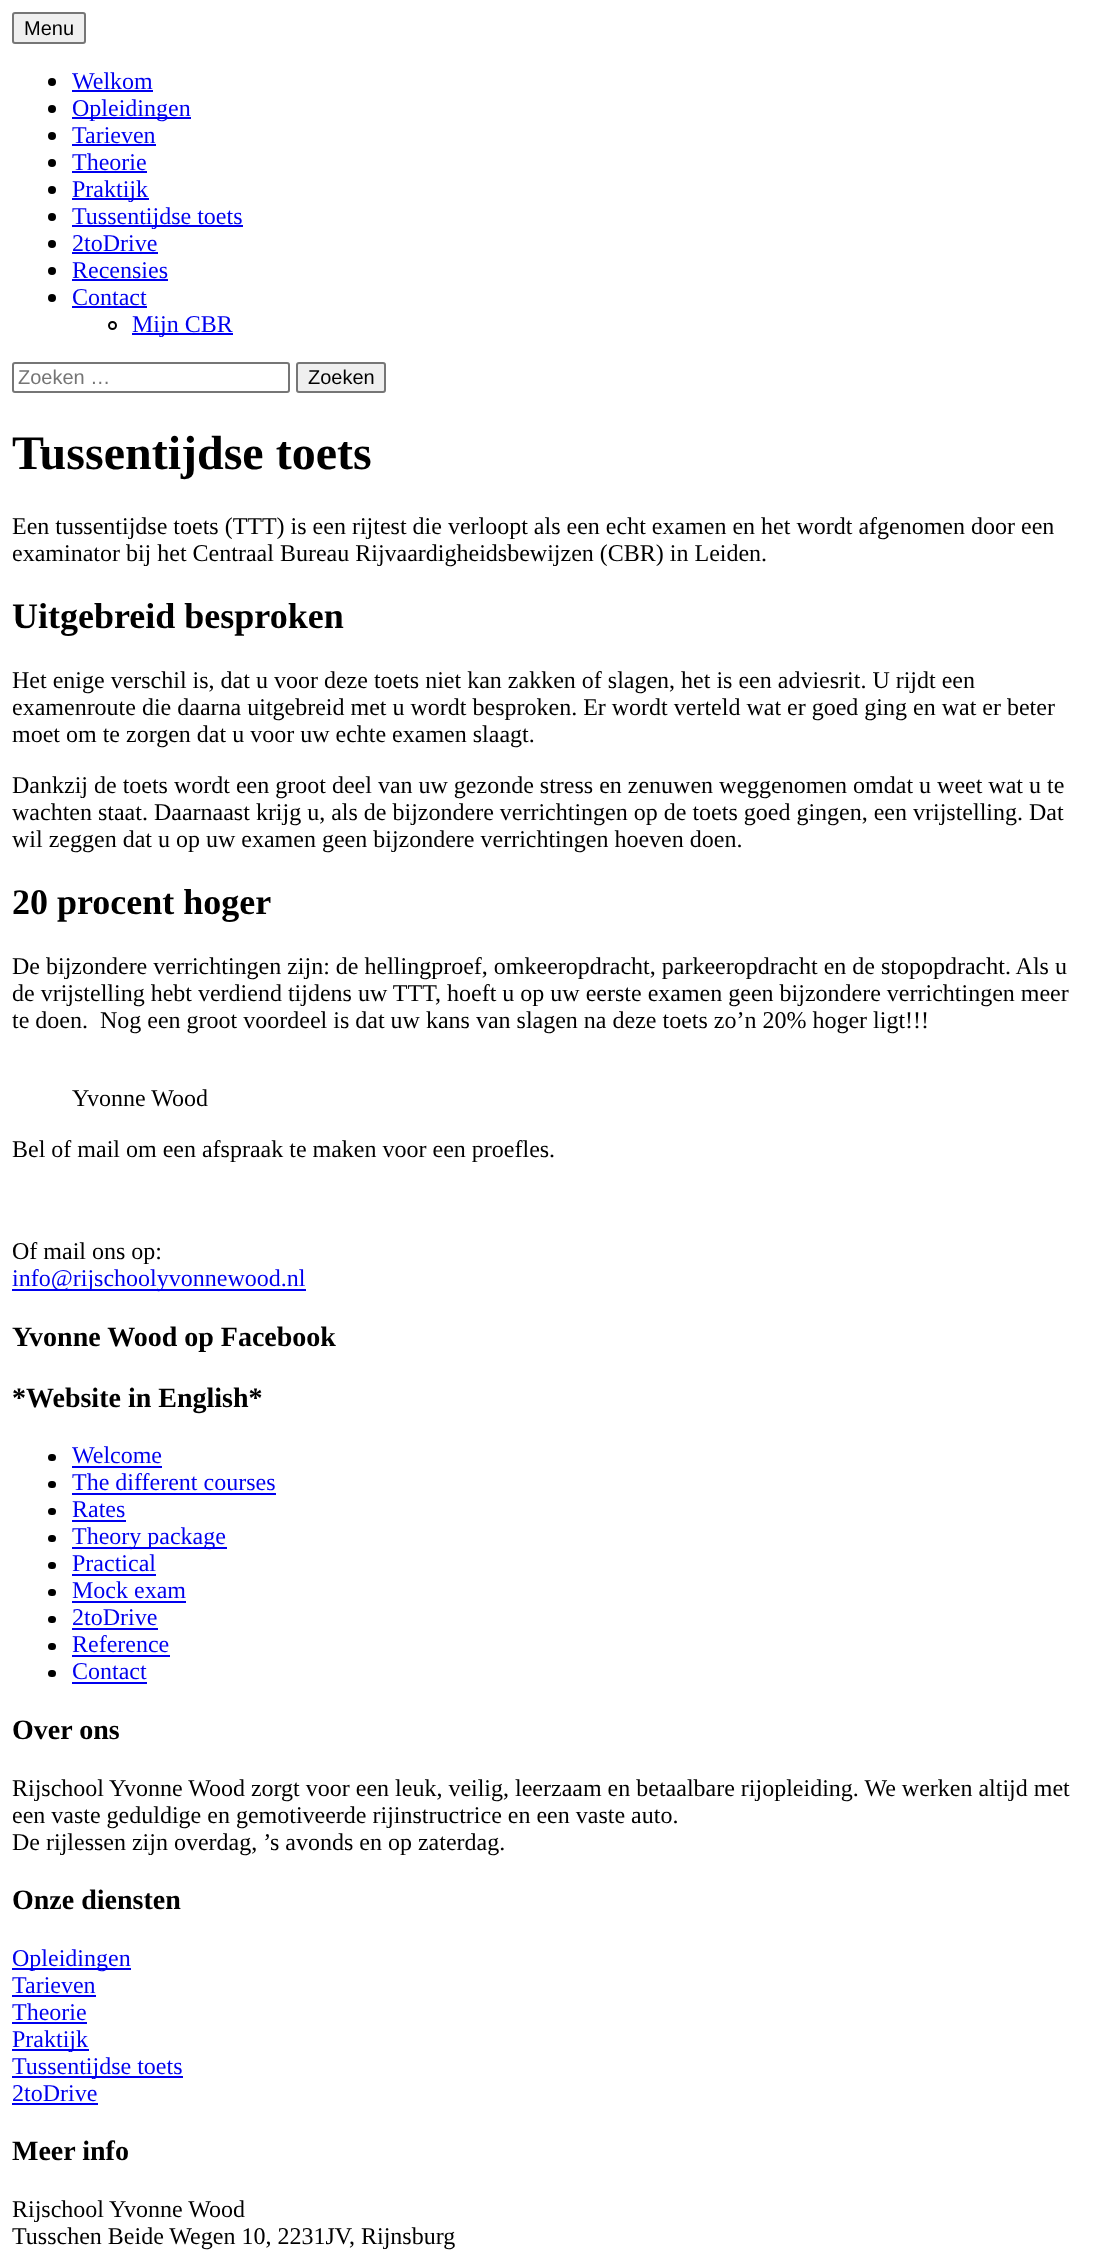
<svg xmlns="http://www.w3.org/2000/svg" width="1093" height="2265">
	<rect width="100%" height="100%" fill="#FFFFFF" />
	<rect x="13" y="13" width="72" height="30" rx="2" fill="#EFEFEF" stroke="#767676" stroke-width="2" />
	<text x="24" y="35" font-family="Liberation Sans" font-size="20" fill="#000000">Menu</text>
	<circle cx="52" cy="82" r="4" fill="#000000" />
	<text x="72" y="89" font-family="Liberation Serif" font-size="24" fill="#0000EE">Welkom</text>
	<rect x="72" y="90" width="81" height="2" fill="#0000EE" />
	<circle cx="52" cy="109" r="4" fill="#000000" />
	<rect x="72" y="117" width="119" height="2" fill="#0000EE" />
	<text x="72" y="116" font-family="Liberation Serif" font-size="24" fill="#0000EE">Opleidingen</text>
	<circle cx="52" cy="136" r="4" fill="#000000" />
	<text x="72" y="143" font-family="Liberation Serif" font-size="24" fill="#0000EE">Tarieven</text>
	<rect x="72" y="144" width="84" height="2" fill="#0000EE" />
	<circle cx="52" cy="163" r="4" fill="#000000" />
	<text x="72" y="170" font-family="Liberation Serif" font-size="24" fill="#0000EE">Theorie</text>
	<rect x="72" y="171" width="75" height="2" fill="#0000EE" />
	<circle cx="52" cy="190" r="4" fill="#000000" />
	<rect x="72" y="198" width="77" height="2" fill="#0000EE" />
	<text x="72" y="197" font-family="Liberation Serif" font-size="24" fill="#0000EE">Praktijk</text>
	<circle cx="52" cy="217" r="4" fill="#000000" />
	<rect x="72" y="225" width="171" height="2" fill="#0000EE" />
	<text x="72" y="224" font-family="Liberation Serif" font-size="24" fill="#0000EE">Tussentijdse toets</text>
	<circle cx="52" cy="244" r="4" fill="#000000" />
	<text x="72" y="251" font-family="Liberation Serif" font-size="24" fill="#0000EE">2toDrive</text>
	<rect x="72" y="252" width="86" height="2" fill="#0000EE" />
	<circle cx="52" cy="271" r="4" fill="#000000" />
	<text x="72" y="278" font-family="Liberation Serif" font-size="24" fill="#0000EE">Recensies</text>
	<rect x="72" y="279" width="96" height="2" fill="#0000EE" />
	<circle cx="52" cy="298" r="4" fill="#000000" />
	<text x="72" y="305" font-family="Liberation Serif" font-size="24" fill="#0000EE">Contact</text>
	<rect x="72" y="306" width="75" height="2" fill="#0000EE" />
	<circle cx="112.5" cy="325.5" r="3.5" fill="none" stroke="#000000" stroke-width="2" />
	<rect x="132" y="333" width="101" height="2" fill="#0000EE" />
	<text x="132" y="332" font-family="Liberation Serif" font-size="24" fill="#0000EE">Mijn CBR</text>
	<rect x="13" y="363" width="276" height="29" rx="2" fill="none" stroke="#767676" stroke-width="2" />
	<text x="18" y="384" font-family="Liberation Sans" font-size="20" fill="#757575">Zoeken …</text>
	<rect x="297" y="363" width="88" height="29" rx="2" fill="#EFEFEF" stroke="#767676" stroke-width="2" />
	<text x="308" y="384" font-family="Liberation Sans" font-size="20" fill="#000000">Zoeken</text>
	<text x="12" y="469" font-family="Liberation Serif" font-size="48" font-weight="700" fill="#000000">Tussentijdse toets</text>
	<g font-family="Liberation Serif" font-size="24" fill="#000000">
		<text x="12" y="534">Een tussentijdse toets (TTT) is een rijtest die verloopt als een echt examen en het wordt afgenomen door een</text>
		<text x="12" y="561">examinator bij het Centraal Bureau Rijvaardigheidsbewijzen (CBR) in Leiden.</text>
	</g>
	<text x="12" y="628" font-family="Liberation Serif" font-size="36" font-weight="700" fill="#000000">Uitgebreid besproken</text>
	<g font-family="Liberation Serif" font-size="24" fill="#000000">
		<text x="12" y="688">Het enige verschil is, dat u voor deze toets niet kan zakken of slagen, het is een adviesrit. U rijdt een</text>
		<text x="12" y="715">examenroute die daarna uitgebreid met u wordt besproken. Er wordt verteld wat er goed ging en wat er beter</text>
		<text x="12" y="742">moet om te zorgen dat u voor uw echte examen slaagt.</text>
		<text x="12" y="793">Dankzij de toets wordt een groot deel van uw gezonde stress en zenuwen weggenomen omdat u weet wat u te</text>
		<text x="12" y="820">wachten staat. Daarnaast krijg u, als de bijzondere verrichtingen op de toets goed gingen, een vrijstelling. Dat</text>
		<text x="12" y="847">wil zeggen dat u op uw examen geen bijzondere verrichtingen hoeven doen.</text>
	</g>
	<text x="12" y="914" font-family="Liberation Serif" font-size="36" font-weight="700" fill="#000000">20 procent hoger</text>
	<g font-family="Liberation Serif" font-size="24" fill="#000000">
		<text x="12" y="974">De bijzondere verrichtingen zijn: de hellingproef, omkeeropdracht, parkeeropdracht en de stopopdracht. Als u</text>
		<text x="12" y="1001">de vrijstelling hebt verdiend tijdens uw TTT, hoeft u op uw eerste examen geen bijzondere verrichtingen meer</text>
		<text x="12" y="1028" xml:space="preserve">te doen.  Nog een groot voordeel is dat uw kans van slagen na deze toets zo’n 20% hoger ligt!!!</text>
		<text x="72" y="1106">Yvonne Wood</text>
		<text x="12" y="1157">Bel of mail om een afspraak te maken voor een proefles.</text>
		<text x="12" y="1259">Of mail ons op:</text>
	</g>
	<rect x="12" y="1289" width="294" height="2" fill="#0000EE" />
	<text x="12" y="1286" font-family="Liberation Serif" font-size="24" fill="#0000EE">info@rijschoolyvonnewood.nl</text>
	<g font-family="Liberation Serif" font-size="28" font-weight="700" fill="#000000">
		<text x="12" y="1346">Yvonne Wood op Facebook</text>
		<text x="12" y="1407">*Website in English*</text>
	</g>
	<rect x="48" y="1454" width="8" height="7" rx="3.5" fill="#000000" />
	<text x="72" y="1463" font-family="Liberation Serif" font-size="24" fill="#0000EE">Welcome</text>
	<rect x="72" y="1466" width="90" height="2" fill="#0000EE" />
	<rect x="48" y="1481" width="8" height="7" rx="3.5" fill="#000000" />
	<text x="72" y="1490" font-family="Liberation Serif" font-size="24" fill="#0000EE">The different courses</text>
	<rect x="72" y="1493" width="204" height="2" fill="#0000EE" />
	<rect x="48" y="1508" width="8" height="7" rx="3.5" fill="#000000" />
	<text x="72" y="1517" font-family="Liberation Serif" font-size="24" fill="#0000EE">Rates</text>
	<rect x="72" y="1520" width="54" height="2" fill="#0000EE" />
	<rect x="48" y="1535" width="8" height="7" rx="3.5" fill="#000000" />
	<rect x="72" y="1547" width="155" height="2" fill="#0000EE" />
	<text x="72" y="1544" font-family="Liberation Serif" font-size="24" fill="#0000EE">Theory package</text>
	<rect x="48" y="1562" width="8" height="7" rx="3.5" fill="#000000" />
	<text x="72" y="1571" font-family="Liberation Serif" font-size="24" fill="#0000EE">Practical</text>
	<rect x="72" y="1574" width="84" height="2" fill="#0000EE" />
	<rect x="48" y="1589" width="8" height="7" rx="3.5" fill="#000000" />
	<text x="72" y="1598" font-family="Liberation Serif" font-size="24" fill="#0000EE">Mock exam</text>
	<rect x="72" y="1601" width="114" height="2" fill="#0000EE" />
	<rect x="48" y="1616" width="8" height="7" rx="3.5" fill="#000000" />
	<text x="72" y="1625" font-family="Liberation Serif" font-size="24" fill="#0000EE">2toDrive</text>
	<rect x="72" y="1628" width="86" height="2" fill="#0000EE" />
	<rect x="48" y="1643" width="8" height="7" rx="3.5" fill="#000000" />
	<text x="72" y="1652" font-family="Liberation Serif" font-size="24" fill="#0000EE">Reference</text>
	<rect x="72" y="1655" width="98" height="2" fill="#0000EE" />
	<rect x="48" y="1670" width="8" height="7" rx="3.5" fill="#000000" />
	<text x="72" y="1679" font-family="Liberation Serif" font-size="24" fill="#0000EE">Contact</text>
	<rect x="72" y="1682" width="75" height="2" fill="#0000EE" />
	<text x="12" y="1739" font-family="Liberation Serif" font-size="28" font-weight="700" fill="#000000">Over ons</text>
	<g font-family="Liberation Serif" font-size="24" fill="#000000">
		<text x="12" y="1796">Rijschool</text>
		<text x="109" y="1796">Yvonne Wood zorgt voor een leuk, veilig, leerzaam en betaalbare rijopleiding. We werken altijd met</text>
		<text x="12" y="1823">een vaste geduldige en gemotiveerde rijinstructrice en een vaste auto.</text>
		<text x="12" y="1850">De rijlessen zijn overdag, ’s avonds en op zaterdag.</text>
	</g>
	<text x="12" y="1909" font-family="Liberation Serif" font-size="28" font-weight="700" fill="#000000">Onze diensten</text>
	<rect x="12" y="1968" width="119" height="2" fill="#0000EE" />
	<g font-family="Liberation Serif" font-size="24" fill="#0000EE">
		<text x="12" y="1966">Opleidingen</text>
		<text x="12" y="1993">Tarieven</text>
	</g>
	<rect x="12" y="1995" width="84" height="2" fill="#0000EE" />
	<text x="12" y="2020" font-family="Liberation Serif" font-size="24" fill="#0000EE">Theorie</text>
	<rect x="12" y="2022" width="75" height="2" fill="#0000EE" />
	<rect x="12" y="2049" width="77" height="2" fill="#0000EE" />
	<text x="12" y="2047" font-family="Liberation Serif" font-size="24" fill="#0000EE">Praktijk</text>
	<rect x="12" y="2076" width="171" height="2" fill="#0000EE" />
	<g font-family="Liberation Serif" font-size="24" fill="#0000EE">
		<text x="12" y="2074">Tussentijdse toets</text>
		<text x="12" y="2101">2toDrive</text>
	</g>
	<rect x="12" y="2103" width="86" height="2" fill="#0000EE" />
	<text x="12" y="2160" font-family="Liberation Serif" font-size="28" font-weight="700" fill="#000000">Meer info</text>
	<g font-family="Liberation Serif" font-size="24" fill="#000000">
		<text x="12" y="2217">Rijschool Yvonne Wood</text>
		<text x="12" y="2244">Tusschen Beide Wegen 10, 2231JV, Rijnsburg</text>
	</g>
</svg>
